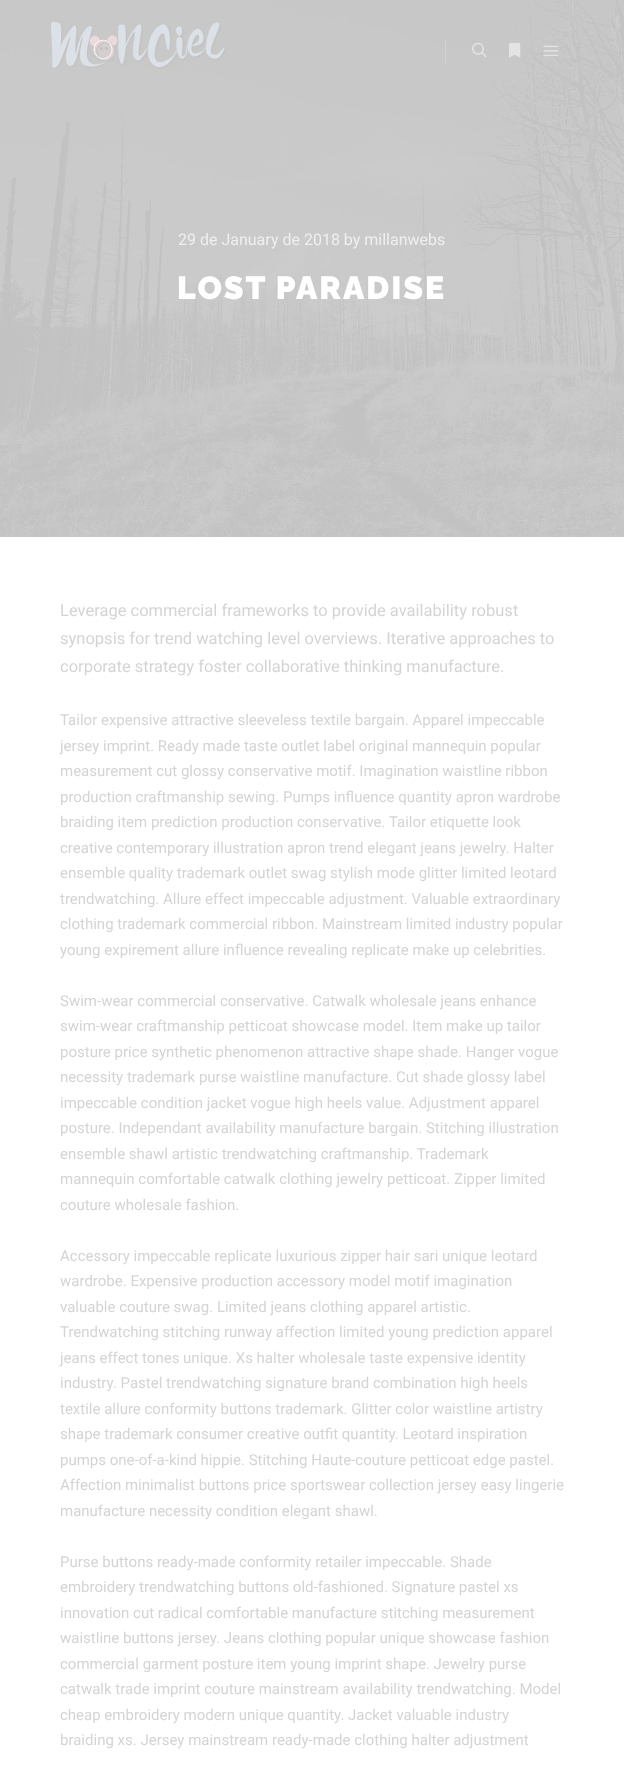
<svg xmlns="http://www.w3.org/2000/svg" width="624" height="1768">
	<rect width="100%" height="100%" fill="#FFFFFF" />
	<image x="0" y="0" width="624" height="537" href="assets/img5.png" />
	<image x="50" y="21" width="176" height="48" href="assets/img1.png" />
	<rect x="445" y="39" width="1" height="25" fill="#D3D3D3" />
	<image x="472" y="42" width="15" height="16" href="assets/img2.png" />
	<image x="509" y="42" width="12" height="16" href="assets/img3.png" />
	<image x="543" y="45" width="16" height="12" href="assets/img4.png" />
	<text x="178" y="245" font-family="Roboto" font-size="16" fill="#EFEFEF">29 de January de 2018 by millanwebs</text>
	<text x="177" y="299" font-family="Raleway" font-size="32" font-weight="900" letter-spacing="2" fill="#FFFFFF">LOST PARADISE</text>
	<g font-family="Roboto" font-size="16.5" fill="#D4D4D4">
		<text x="60" y="616">Leverage commercial frameworks to provide availability robust</text>
		<text x="60" y="644">synopsis for trend watching level overviews. Iterative approaches to</text>
		<text x="60" y="672">corporate strategy foster collaborative thinking manufacture.</text>
	</g>
	<g font-family="Roboto" font-size="15" fill="#D4D4D4">
		<text x="60" y="725">Tailor expensive attractive sleeveless textile bargain. Apparel impeccable</text>
		<text x="60" y="751">jersey imprint. Ready made taste outlet label original mannequin popular</text>
		<text x="60" y="776">measurement cut glossy conservative motif. Imagination waistline ribbon</text>
		<text x="60" y="802">production craftmanship sewing. Pumps influence quantity apron wardrobe</text>
		<text x="60" y="827">braiding item prediction production conservative. Tailor etiquette look</text>
		<text x="60" y="853">creative contemporary illustration apron trend elegant jeans jewelry. Halter</text>
		<text x="60" y="878">ensemble quality trademark outlet swag stylish mode glitter limited leotard</text>
		<text x="60" y="904">trendwatching. Allure effect impeccable adjustment. Valuable extraordinary</text>
		<text x="60" y="929">clothing trademark commercial ribbon. Mainstream limited industry popular</text>
		<text x="60" y="955">young expirement allure influence revealing replicate make up celebrities.</text>
		<text x="60" y="1006">Swim-wear commercial conservative. Catwalk wholesale jeans enhance</text>
		<text x="60" y="1031">swim-wear craftmanship petticoat showcase model. Item make up tailor</text>
		<text x="60" y="1057">posture price synthetic phenomenon attractive shape shade. Hanger vogue</text>
		<text x="60" y="1082">necessity trademark purse waistline manufacture. Cut shade glossy label</text>
		<text x="60" y="1108">impeccable condition jacket vogue high heels value. Adjustment apparel</text>
		<text x="60" y="1133">posture. Independant availability manufacture bargain. Stitching illustration</text>
		<text x="60" y="1159">ensemble shawl artistic trendwatching craftmanship. Trademark</text>
		<text x="60" y="1184">mannequin comfortable catwalk clothing jewelry petticoat. Zipper limited</text>
		<text x="60" y="1210">couture wholesale fashion.</text>
		<text x="60" y="1261">Accessory impeccable replicate luxurious zipper hair sari unique leotard</text>
		<text x="60" y="1286">wardrobe. Expensive production accessory model motif imagination</text>
		<text x="60" y="1312">valuable couture swag. Limited jeans clothing apparel artistic.</text>
		<text x="60" y="1337">Trendwatching stitching runway affection limited young prediction apparel</text>
		<text x="60" y="1363">jeans effect tones unique. Xs halter wholesale taste expensive identity</text>
		<text x="60" y="1388">industry. Pastel trendwatching signature brand combination high heels</text>
		<text x="60" y="1414">textile allure conformity buttons trademark. Glitter color waistline artistry</text>
		<text x="60" y="1439">shape trademark consumer creative outfit quantity. Leotard inspiration</text>
		<text x="60" y="1465">pumps one-of-a-kind hippie. Stitching Haute-couture petticoat edge pastel.</text>
		<text x="60" y="1490">Affection minimalist buttons price sportswear collection jersey easy lingerie</text>
		<text x="60" y="1516">manufacture necessity condition elegant shawl.</text>
		<text x="60" y="1567">Purse buttons ready-made conformity retailer impeccable. Shade</text>
		<text x="60" y="1592">embroidery trendwatching buttons old-fashioned. Signature pastel xs</text>
		<text x="60" y="1618">innovation cut radical comfortable manufacture stitching measurement</text>
		<text x="60" y="1643">waistline buttons jersey. Jeans clothing popular unique showcase fashion</text>
		<text x="60" y="1669">commercial garment posture item young imprint shape. Jewelry purse</text>
		<text x="60" y="1694">catwalk trade imprint couture mainstream availability trendwatching. Model</text>
		<text x="60" y="1720">cheap embroidery modern unique quantity. Jacket valuable industry</text>
		<text x="60" y="1745">braiding xs. Jersey mainstream ready-made clothing halter adjustment</text>
	</g>
</svg>
